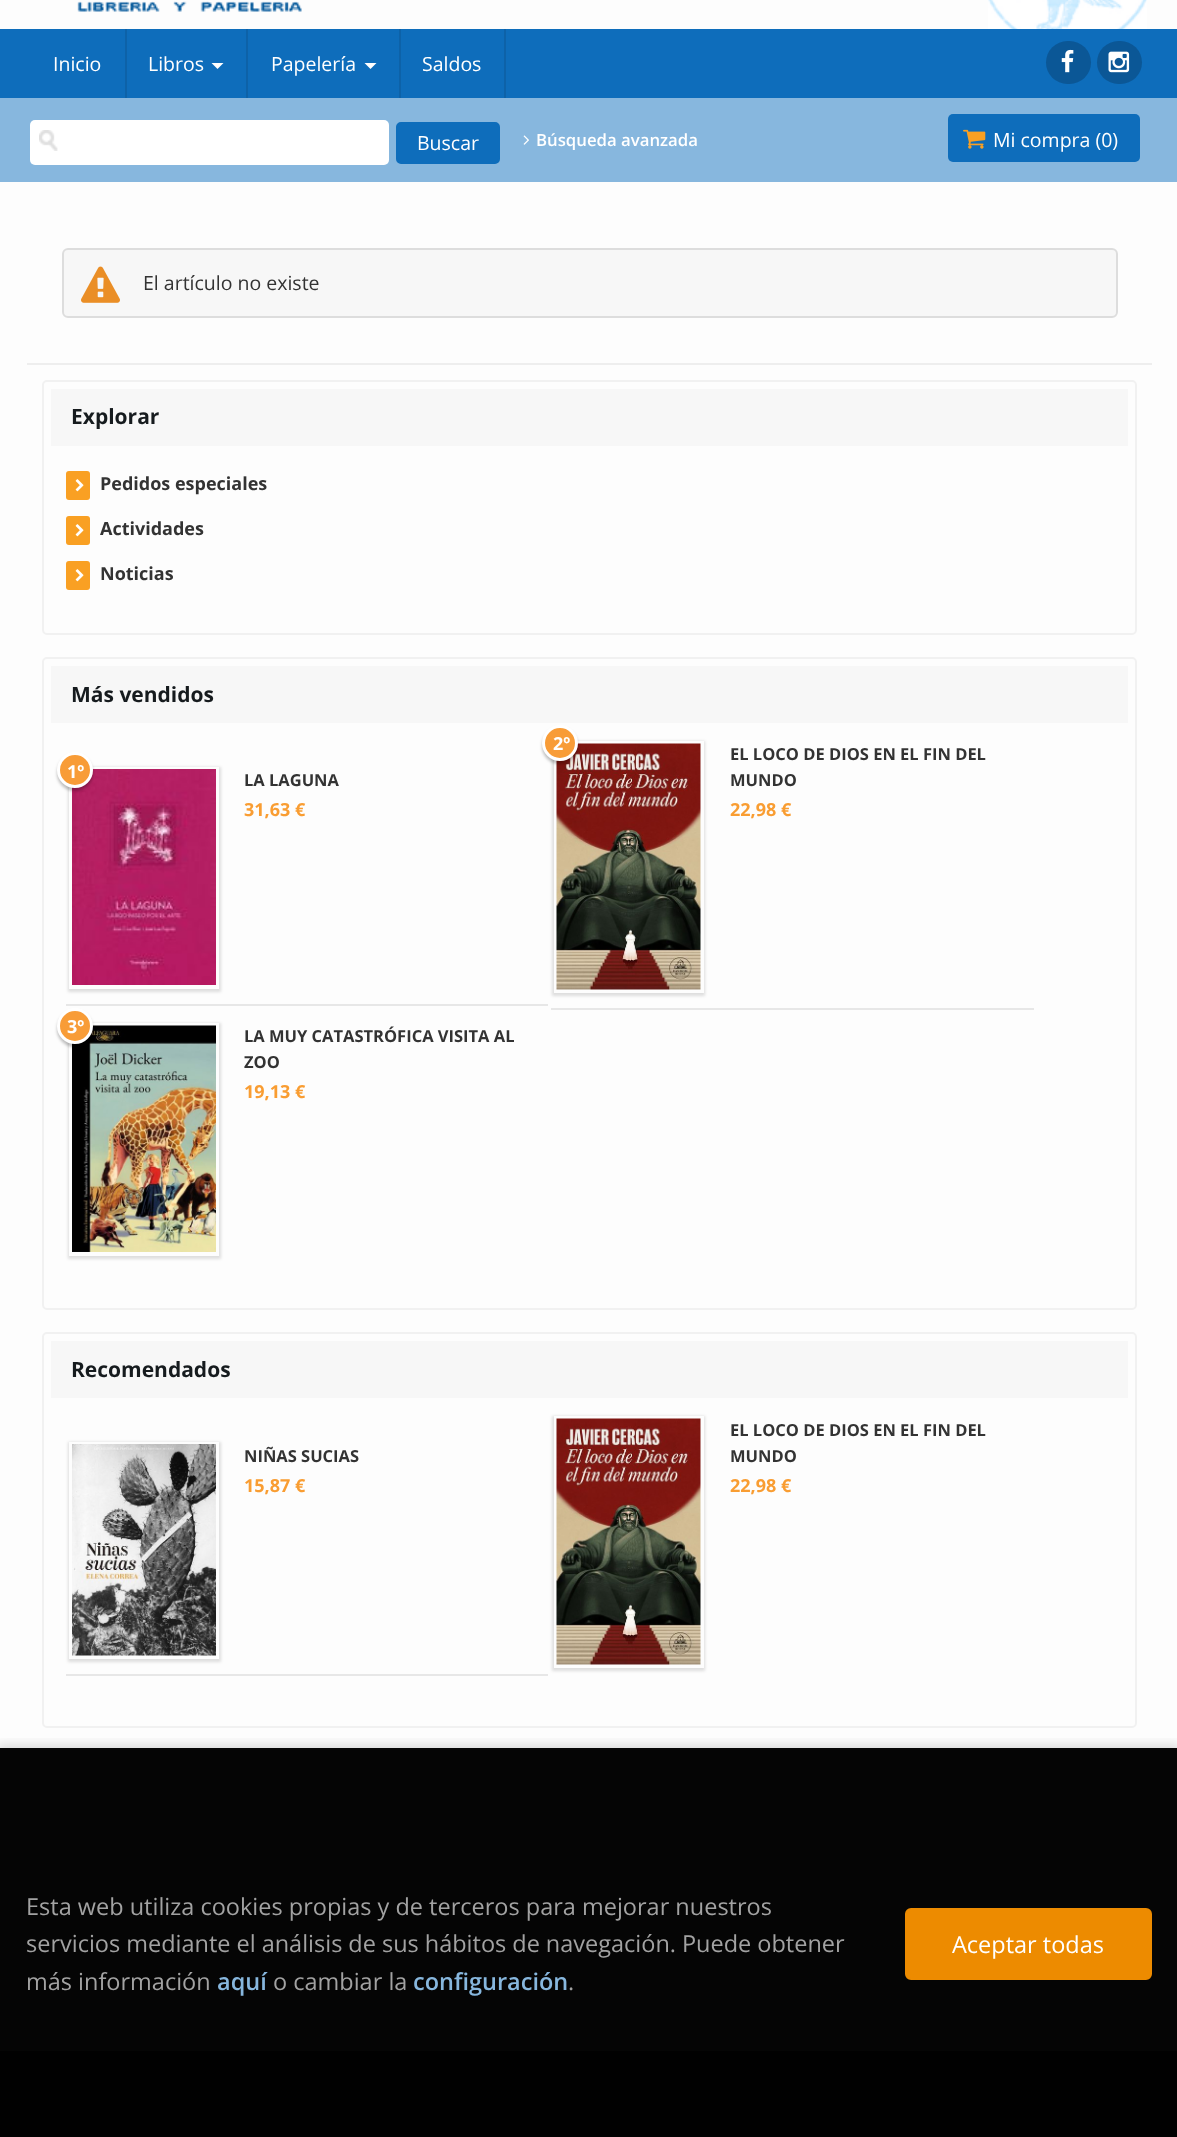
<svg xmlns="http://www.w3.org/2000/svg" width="1177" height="2137">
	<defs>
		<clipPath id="clip1"><path d="M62 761H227V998H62ZM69 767H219V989H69Z" clip-rule="evenodd" /></clipPath>
		<clipPath id="clip2"><path d="M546 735H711V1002H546ZM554 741H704V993H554Z" clip-rule="evenodd" /></clipPath>
		<clipPath id="clip3"><path d="M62 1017H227V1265H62ZM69 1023H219V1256H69Z" clip-rule="evenodd" /></clipPath>
		<clipPath id="clip4"><path d="M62 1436H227V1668H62ZM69 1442H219V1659H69Z" clip-rule="evenodd" /></clipPath>
		<clipPath id="clip5"><path d="M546 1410H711V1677H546ZM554 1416H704V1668H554Z" clip-rule="evenodd" /></clipPath>
		<clipPath id="clip6"><rect x="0" y="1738" width="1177" height="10" /></clipPath>
	</defs>
	<rect width="100%" height="100%" fill="#FDFDFD" />
	<rect x="0" y="1748" width="1177" height="303" fill="#050505" />
	<image x="988" y="0" width="159" height="29" href="assets/img1.png" />
	<image x="77" y="1" width="225" height="11" href="assets/img2.png" />
	<rect x="0" y="29" width="1177" height="69" fill="#0E6DBB" />
	<rect x="125" y="29" width="2" height="69" fill="#0D62A8" />
	<text x="53" y="71" font-family="Open Sans" font-size="19.5" fill="#FFFFFF">Inicio</text>
	<rect x="246" y="29" width="2" height="69" fill="#0D62A8" />
	<text x="148" y="71" font-family="Open Sans" font-size="19.5" fill="#FFFFFF">Libros</text>
	<path d="M211.5 63H223.5L217.5 69Z" fill="#FFFFFF" />
	<rect x="399" y="29" width="2" height="69" fill="#0D62A8" />
	<text x="271" y="71" font-family="Open Sans" font-size="19.5" fill="#FFFFFF">Papelería</text>
	<path d="M364.5 63H376.5L370.5 69Z" fill="#FFFFFF" />
	<rect x="504" y="29" width="2" height="69" fill="#0D62A8" />
	<text x="422" y="71" font-family="Open Sans" font-size="19.5" fill="#FFFFFF">Saldos</text>
	<rect x="1046" y="41" width="45" height="43" rx="21.5" fill="#0B5796" />
	<image x="1061" y="49" width="13" height="24" href="assets/img3.png" />
	<rect x="1097" y="41" width="45" height="43" rx="21.5" fill="#0B5796" />
	<image x="1108" y="51" width="22" height="22" href="assets/img4.png" />
	<rect x="0" y="98" width="1177" height="84" fill="#87B7DE" />
	<rect x="30" y="120" width="359" height="45" rx="5" fill="#FFFFFF" />
	<image x="39" y="130" width="19" height="21" href="assets/img5.png" />
	<rect x="397" y="123" width="102" height="40" rx="4" fill="#0E6DBB" stroke="#0E6DBB" stroke-width="2" />
	<text x="417" y="150" font-family="Open Sans" font-size="19.5" fill="#FFFFFF">Buscar</text>
	<image x="523" y="135" width="6" height="10" href="assets/img6.png" />
	<text x="536" y="146" font-family="Open Sans" font-size="16.75" font-weight="600" fill="#FFFFFF">Búsqueda avanzada</text>
	<rect x="948" y="114" width="192" height="48" rx="5" fill="#0E6DBB" />
	<image x="963" y="129" width="23" height="20" href="assets/img7.png" />
	<text x="993" y="147" font-family="Open Sans" font-size="19.5" fill="#FFFFFF">Mi compra (0)</text>
	<rect x="63" y="249" width="1054" height="68" rx="5" fill="#F7F7F7" stroke="#DDDDDD" stroke-width="2" />
	<image x="81" y="266" width="39" height="37" href="assets/img8.png" />
	<text x="143" y="290" font-family="Open Sans" font-size="19.5" fill="#333333">El artículo no existe</text>
	<rect x="27" y="363" width="1125" height="2" fill="#EEEEEE" />
	<rect x="43" y="381" width="1093" height="253" rx="4" fill="none" stroke="#F1F1F1" stroke-width="2" />
	<rect x="51" y="389" width="1077" height="57" fill="#F7F7F7" />
	<text x="71" y="424" font-family="Open Sans" font-size="21" font-weight="700" fill="#161B1E">Explorar</text>
	<rect x="66" y="471" width="24" height="29" rx="3" fill="#F9A023" />
	<image x="75" y="479" width="9" height="13" href="assets/img9.png" />
	<text x="100" y="490" font-family="Open Sans" font-size="18" font-weight="700" fill="#333333">Pedidos especiales</text>
	<rect x="66" y="516" width="24" height="29" rx="3" fill="#F9A023" />
	<image x="75" y="524" width="9" height="13" href="assets/img9.png" />
	<text x="100" y="535" font-family="Open Sans" font-size="18" font-weight="700" fill="#333333">Actividades</text>
	<rect x="66" y="561" width="24" height="29" rx="3" fill="#F9A023" />
	<image x="75" y="569" width="9" height="13" href="assets/img9.png" />
	<text x="100" y="580" font-family="Open Sans" font-size="18" font-weight="700" fill="#333333">Noticias</text>
	<rect x="43" y="658" width="1093" height="651" rx="4" fill="none" stroke="#F1F1F1" stroke-width="2" />
	<rect x="51" y="666" width="1077" height="57" fill="#F7F7F7" />
	<text x="71" y="702" font-family="Open Sans" font-size="21" font-weight="700" fill="#161B1E">Más vendidos</text>
	<rect x="66" y="1004" width="482" height="2" fill="#E7E7E7" />
	<g clip-path="url(#clip1)">
		<rect x="68" y="767" width="153" height="225" fill="#000000" fill-opacity="0.12" filter="blur(1.5px)" />
	</g>
	<image x="72" y="769" width="144" height="216" href="assets/img10.png" />
	<rect x="57" y="755" width="36" height="36" rx="18" fill="#000000" fill-opacity="0.25" filter="blur(1.5px)" />
	<circle cx="75" cy="770" r="16.5" fill="#F89C37" stroke="#FFFFFF" stroke-width="3" />
	<text x="67" y="778" font-family="Open Sans" font-size="18" font-weight="700" fill="#FFFFFF">1º</text>
	<text x="244" y="786" font-family="Open Sans" font-size="16.5" font-weight="700" fill="#333333">LA LAGUNA</text>
	<text x="244" y="816" font-family="Open Sans" font-size="18" font-weight="700" fill="#F99D32">31,63 €</text>
	<rect x="551" y="1008" width="483" height="2" fill="#E7E7E7" />
	<g clip-path="url(#clip2)">
		<rect x="552" y="741" width="153" height="255" fill="#000000" fill-opacity="0.12" filter="blur(1.5px)" />
	</g>
	<image x="556" y="743" width="145" height="247" href="assets/img11.png" />
	<rect x="542" y="728" width="36" height="36" rx="18" fill="#000000" fill-opacity="0.25" filter="blur(1.5px)" />
	<circle cx="560" cy="743" r="16.5" fill="#F89C37" stroke="#FFFFFF" stroke-width="3" />
	<text x="553" y="750" font-family="Open Sans" font-size="18" font-weight="700" fill="#FFFFFF">2º</text>
	<g font-family="Open Sans" font-size="16.5" font-weight="700" fill="#333333">
		<text x="730" y="760">EL LOCO DE DIOS EN EL FIN DEL</text>
		<text x="730" y="786">MUNDO</text>
	</g>
	<text x="730" y="816" font-family="Open Sans" font-size="18" font-weight="700" fill="#F99D32">22,98 €</text>
	<g clip-path="url(#clip3)">
		<rect x="68" y="1023" width="153" height="236" fill="#000000" fill-opacity="0.12" filter="blur(1.5px)" />
	</g>
	<image x="72" y="1025" width="144" height="227" href="assets/img12.png" />
	<rect x="57" y="1011" width="36" height="36" rx="18" fill="#000000" fill-opacity="0.25" filter="blur(1.5px)" />
	<circle cx="75" cy="1026" r="16.5" fill="#F89C37" stroke="#FFFFFF" stroke-width="3" />
	<text x="67" y="1033" font-family="Open Sans" font-size="18" font-weight="700" fill="#FFFFFF">3º</text>
	<g font-family="Open Sans" font-size="16.5" font-weight="700" fill="#333333">
		<text x="244" y="1042">LA MUY CATASTRÓFICA VISITA AL</text>
		<text x="244" y="1068">ZOO</text>
	</g>
	<text x="244" y="1098" font-family="Open Sans" font-size="18" font-weight="700" fill="#F99D32">19,13 €</text>
	<rect x="43" y="1333" width="1093" height="394" rx="4" fill="none" stroke="#F1F1F1" stroke-width="2" />
	<rect x="51" y="1341" width="1077" height="57" fill="#F7F7F7" />
	<text x="71" y="1377" font-family="Open Sans" font-size="21" font-weight="700" fill="#161B1E">Recomendados</text>
	<rect x="66" y="1674" width="482" height="2" fill="#E7E7E7" />
	<g clip-path="url(#clip4)">
		<rect x="68" y="1442" width="153" height="220" fill="#000000" fill-opacity="0.12" filter="blur(1.5px)" />
	</g>
	<image x="72" y="1444" width="144" height="212" href="assets/img13.png" />
	<text x="244" y="1462" font-family="Open Sans" font-size="16.5" font-weight="700" fill="#333333">NIÑAS SUCIAS</text>
	<text x="244" y="1492" font-family="Open Sans" font-size="18" font-weight="700" fill="#F99D32">15,87 €</text>
	<g clip-path="url(#clip5)">
		<rect x="552" y="1416" width="153" height="255" fill="#000000" fill-opacity="0.12" filter="blur(1.5px)" />
	</g>
	<image x="556" y="1418" width="145" height="247" href="assets/img14.png" />
	<g font-family="Open Sans" font-size="16.5" font-weight="700" fill="#333333">
		<text x="730" y="1436">EL LOCO DE DIOS EN EL FIN DEL</text>
		<text x="730" y="1462">MUNDO</text>
	</g>
	<text x="730" y="1492" font-family="Open Sans" font-size="18" font-weight="700" fill="#F99D32">22,98 €</text>
	<rect x="0" y="2051" width="1177" height="86" fill="#010101" />
	<g clip-path="url(#clip6)">
		<rect x="-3" y="1745" width="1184" height="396" fill="#000000" fill-opacity="0.15" filter="blur(6px)" />
	</g>
	<g font-family="Open Sans" font-size="23.5" fill="#A2A2A2">
		<text x="26" y="1915">Esta web utiliza cookies propias y de terceros para mejorar nuestros</text>
		<text x="26" y="1952" word-spacing="-0.1">servicios mediante el análisis de sus hábitos de navegación. Puede obtener</text>
		<text x="26" y="1990">más información</text>
	</g>
	<text x="217" y="1990" font-family="Open Sans" font-size="23.5" font-weight="600" fill="#87B7DE">aquí</text>
	<text x="273" y="1990" font-family="Open Sans" font-size="23.5" fill="#A2A2A2">o cambiar la</text>
	<text x="413" y="1990" font-family="Open Sans" font-size="23.5" font-weight="600" fill="#87B7DE">configuración</text>
	<text x="568" y="1990" font-family="Open Sans" font-size="23.5" fill="#A2A2A2">.</text>
	<rect x="906" y="1909" width="245" height="70" rx="5" fill="#ED8B00" stroke="#ED8B00" stroke-width="2" />
	<text x="952" y="1953" font-family="Open Sans" font-size="23.5" fill="#FFFFFF">Aceptar todas</text>
</svg>
